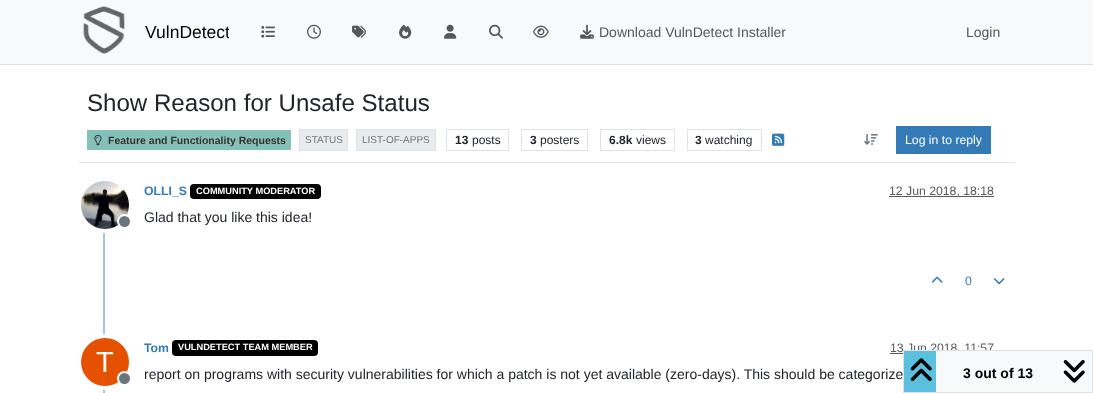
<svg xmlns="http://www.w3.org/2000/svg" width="1093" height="393">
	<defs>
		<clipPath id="clip1"><rect x="145" y="14" width="84" height="37" /></clipPath>
	</defs>
	<rect width="100%" height="100%" fill="#FFFFFF" />
	<rect x="0" y="0" width="1093" height="64" fill="#F8F9FA" />
	<rect x="0" y="64" width="1093" height="1" fill="#DEE2E6" />
	<image x="83" y="6" width="42" height="48" href="assets/img1.png" />
	<g clip-path="url(#clip1)">
		<text x="145" y="38" font-family="Liberation Sans" font-size="17.5" fill="#000000">VulnDetect</text>
	</g>
	<image x="261" y="26" width="14" height="12" href="assets/img2.png" />
	<image x="307" y="24" width="14" height="15" href="assets/img3.png" />
	<image x="352" y="25" width="14" height="13" href="assets/img4.png" />
	<image x="399" y="24" width="13" height="15" href="assets/img5.png" />
	<image x="444" y="24" width="13" height="15" href="assets/img6.png" />
	<image x="489" y="24" width="14" height="15" href="assets/img7.png" />
	<image x="533" y="25" width="16" height="13" href="assets/img8.png" />
	<image x="580" y="24" width="14" height="15" href="assets/img9.png" />
	<g font-family="Liberation Sans" font-size="14" fill="#575758">
		<text x="599" y="37">Download VulnDetect Installer</text>
		<text x="966" y="37">Login</text>
	</g>
	<rect x="79" y="162" width="936" height="1" fill="#DEE2E6" />
	<text x="87" y="111" font-family="Liberation Sans" font-size="24.1" fill="#212529">Show Reason for Unsafe Status</text>
	<rect x="87" y="130" width="204" height="20" fill="#86C1B9" />
	<image x="94" y="134" width="8" height="12" href="assets/img10.png" />
	<text x="108" y="144" font-family="Liberation Sans" font-size="10.5" font-weight="700" fill="#333333">Feature and Functionality Requests</text>
	<rect x="299.5" y="129.5" width="48" height="21" fill="#E9ECEF" stroke="#DEE2E6" />
	<text x="305" y="143" font-family="Liberation Sans" font-size="10" fill="#6C757D">STATUS</text>
	<rect x="356.5" y="129.5" width="79" height="21" fill="#E9ECEF" stroke="#DEE2E6" />
	<text x="362" y="143" font-family="Liberation Sans" font-size="10" fill="#6C757D">LIST-OF-APPS</text>
	<rect x="446.5" y="129.5" width="62" height="21" fill="none" stroke="#DEE2E6" />
	<text x="455" y="144" font-family="Liberation Sans" font-size="12" font-weight="700" fill="#212529">13</text>
	<text x="472" y="144" font-family="Liberation Sans" font-size="12" fill="#212529">posts</text>
	<rect x="521.5" y="129.5" width="66" height="21" fill="none" stroke="#DEE2E6" />
	<text x="530" y="144" font-family="Liberation Sans" font-size="12" font-weight="700" fill="#212529">3</text>
	<text x="540" y="144" font-family="Liberation Sans" font-size="12" fill="#212529">posters</text>
	<rect x="600.5" y="129.5" width="74" height="21" fill="none" stroke="#DEE2E6" />
	<text x="609" y="144" font-family="Liberation Sans" font-size="12" font-weight="700" fill="#212529">6.8k</text>
	<text x="636" y="144" font-family="Liberation Sans" font-size="12" fill="#212529">views</text>
	<rect x="687.5" y="129.5" width="74" height="21" fill="none" stroke="#DEE2E6" />
	<text x="695" y="144" font-family="Liberation Sans" font-size="12" font-weight="700" fill="#212529">3</text>
	<text x="705" y="144" font-family="Liberation Sans" font-size="12" fill="#212529">watching</text>
	<image x="772" y="133" width="13" height="13" href="assets/img11.png" />
	<image x="864" y="134" width="14" height="11" href="assets/img12.png" />
	<rect x="896" y="126" width="95" height="28" fill="#337AB7" />
	<text x="905" y="144" font-family="Liberation Sans" font-size="12.25" fill="#FFFFFF">Log in to reply</text>
	<rect x="103" y="179" width="2" height="214" fill="#A0C4E4" />
	<circle cx="105" cy="205" r="26" fill="none" stroke="#FFFFFF" stroke-width="4" />
	<image x="81" y="181" width="48" height="48" href="assets/img13.png" />
	<circle cx="124.5" cy="221.5" r="6.5" fill="#6C757D" stroke="#FFFFFF" stroke-width="2" />
	<text x="144" y="195" font-family="Liberation Sans" font-size="12.25" font-weight="700" fill="#337AB7">OLLI_S</text>
	<rect x="190" y="184" width="131" height="15" rx="4" fill="#000000" />
	<text x="196" y="194" font-family="Liberation Sans" font-size="9.25" font-weight="700" fill="#FFFFFF">COMMUNITY MODERATOR</text>
	<rect x="889" y="196" width="105" height="1" fill="#595C5F" />
	<text x="889" y="195" font-family="Liberation Sans" font-size="12.25" fill="#585B5E">12 Jun 2018, 18:18</text>
	<text x="144" y="222" font-family="Liberation Sans" font-size="14" fill="#212529">Glad that you like this idea!</text>
	<image x="931" y="276" width="12" height="7" href="assets/img14.png" />
	<text x="965" y="285" font-family="Liberation Sans" font-size="12.25" fill="#337AB7">0</text>
	<image x="993" y="278" width="12" height="7" href="assets/img15.png" />
	<text x="144" y="352" font-family="Liberation Sans" font-size="12.25" font-weight="700" fill="#337AB7">Tom</text>
	<rect x="172" y="340" width="146" height="16" rx="4" fill="#000000" />
	<text x="178" y="350" font-family="Liberation Sans" font-size="9.25" font-weight="700" fill="#FFFFFF">VULNDETECT TEAM MEMBER</text>
	<rect x="890" y="353" width="13" height="1" fill="#595C5F" />
	<text x="890" y="352" font-family="Liberation Sans" font-size="12.25" fill="#585B5E">13 Jun 2018, 11:57</text>
	<circle cx="105" cy="362" r="26" fill="none" stroke="#FFFFFF" stroke-width="4" />
	<circle cx="105" cy="362" r="24" fill="#E65100" />
	<text x="96" y="372" font-family="Liberation Sans" font-size="29" fill="#FFFFFF">T</text>
	<circle cx="124.5" cy="378.5" r="6.5" fill="#6C757D" stroke="#FFFFFF" stroke-width="2" />
	<text x="144" y="379" font-family="Liberation Sans" font-size="14" fill="#212529">report on programs with security vulnerabilities for which a patch is not yet available (zero-days). This should be categorize</text>
	<rect x="936" y="351" width="156" height="41" fill="#F8F9FA" />
	<rect x="903.5" y="350.5" width="189" height="42" fill="none" stroke="#DEE2E6" />
	<rect x="904" y="351" width="32" height="41" fill="#5BC0DE" />
	<image x="910" y="358" width="22" height="23" href="assets/img16.png" />
	<text x="963" y="378" font-family="Liberation Sans" font-size="14" font-weight="700" fill="#000000">3 out of 13</text>
	<image x="1063" y="360" width="22" height="23" href="assets/img17.png" />
</svg>
